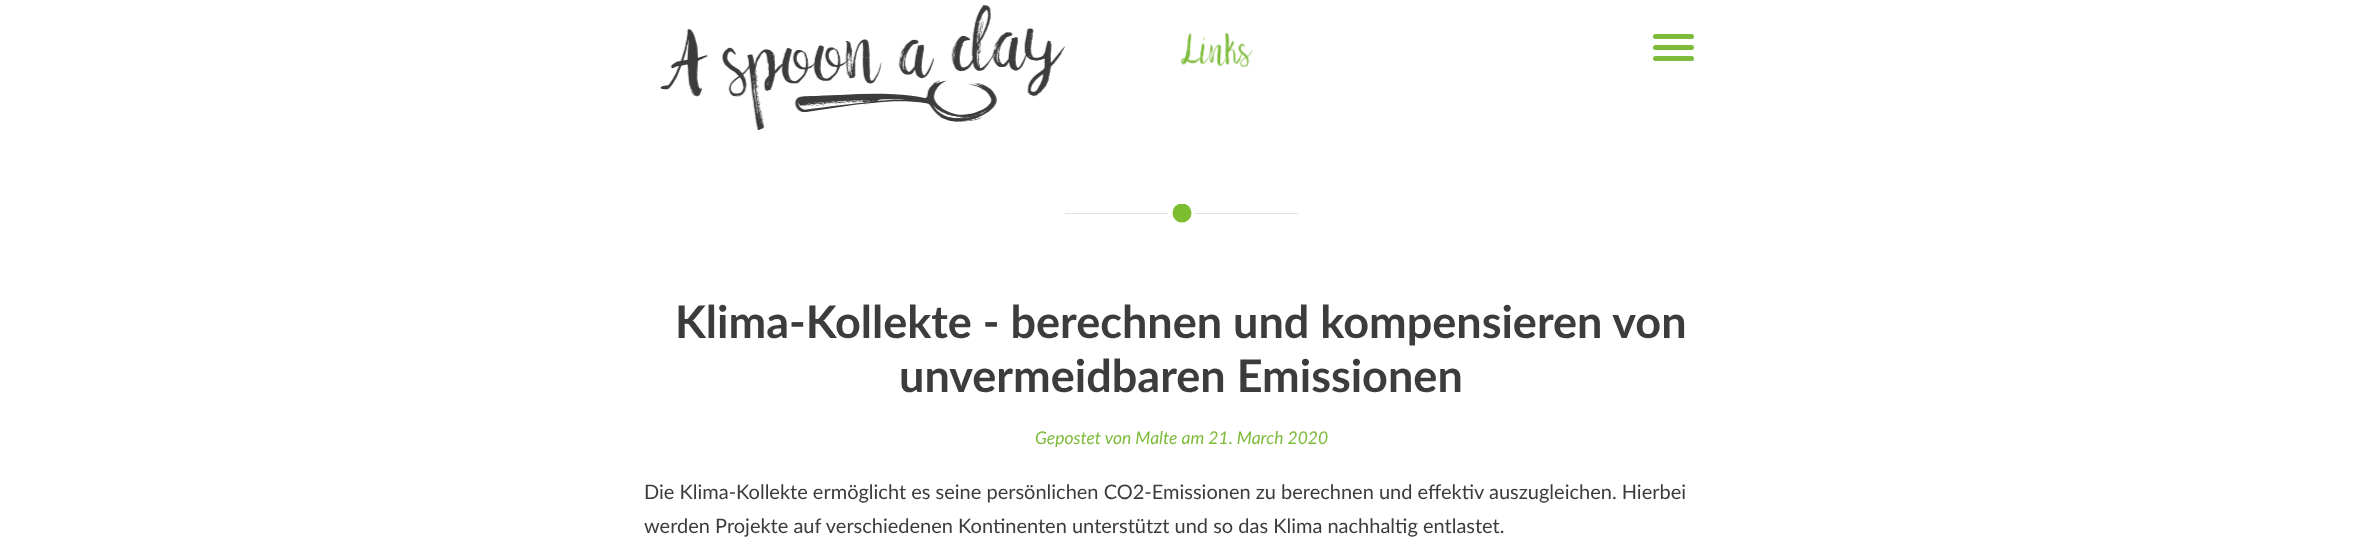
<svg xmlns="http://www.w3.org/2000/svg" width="2362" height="547">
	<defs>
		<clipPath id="clip1"><rect x="994" y="204" width="375" height="19" /></clipPath>
	</defs>
	<rect width="100%" height="100%" fill="#FFFFFF" />
	<image x="660" y="5" width="405" height="125" href="assets/img1.png" />
	<image x="1181" y="33" width="72" height="34" href="assets/img2.png" />
	<rect x="1653" y="34" width="41" height="5" rx="2.5" fill="#7EBB3B" />
	<rect x="1653" y="45" width="41" height="5" rx="2.5" fill="#7EBB3B" />
	<rect x="1653" y="56" width="41" height="5" rx="2.5" fill="#7EBB3B" />
	<rect x="1065" y="213" width="103" height="1" fill="#E3E4E2" />
	<g clip-path="url(#clip1)">
		<circle cx="1182" cy="213" r="9.5" fill="#7CBD2F" />
	</g>
	<rect x="1195" y="213" width="103" height="1" fill="#E3E4E2" />
	<g font-family="Lato" font-size="45" font-weight="700" fill="#3C3C3C">
		<text x="675" y="338">Klima-Kollekte - berechnen und kompensieren von</text>
		<text x="899" y="392">unvermeidbaren Emissionen</text>
	</g>
	<text x="1035" y="444" font-family="Lato" font-size="17.5" font-style="italic" fill="#7EBB3B">Gepostet von Malte am 21. March 2020</text>
	<g font-family="Lato" font-size="20" fill="#3C3C3C">
		<text x="644" y="499">Die Klima-Kollekte ermöglicht es seine persönlichen CO2-Emissionen zu berechnen und effektiv auszugleichen. Hierbei</text>
		<text x="644" y="533">werden Projekte auf verschiedenen Kontinenten unterstützt und so das Klima nachhaltig entlastet.</text>
	</g>
</svg>
